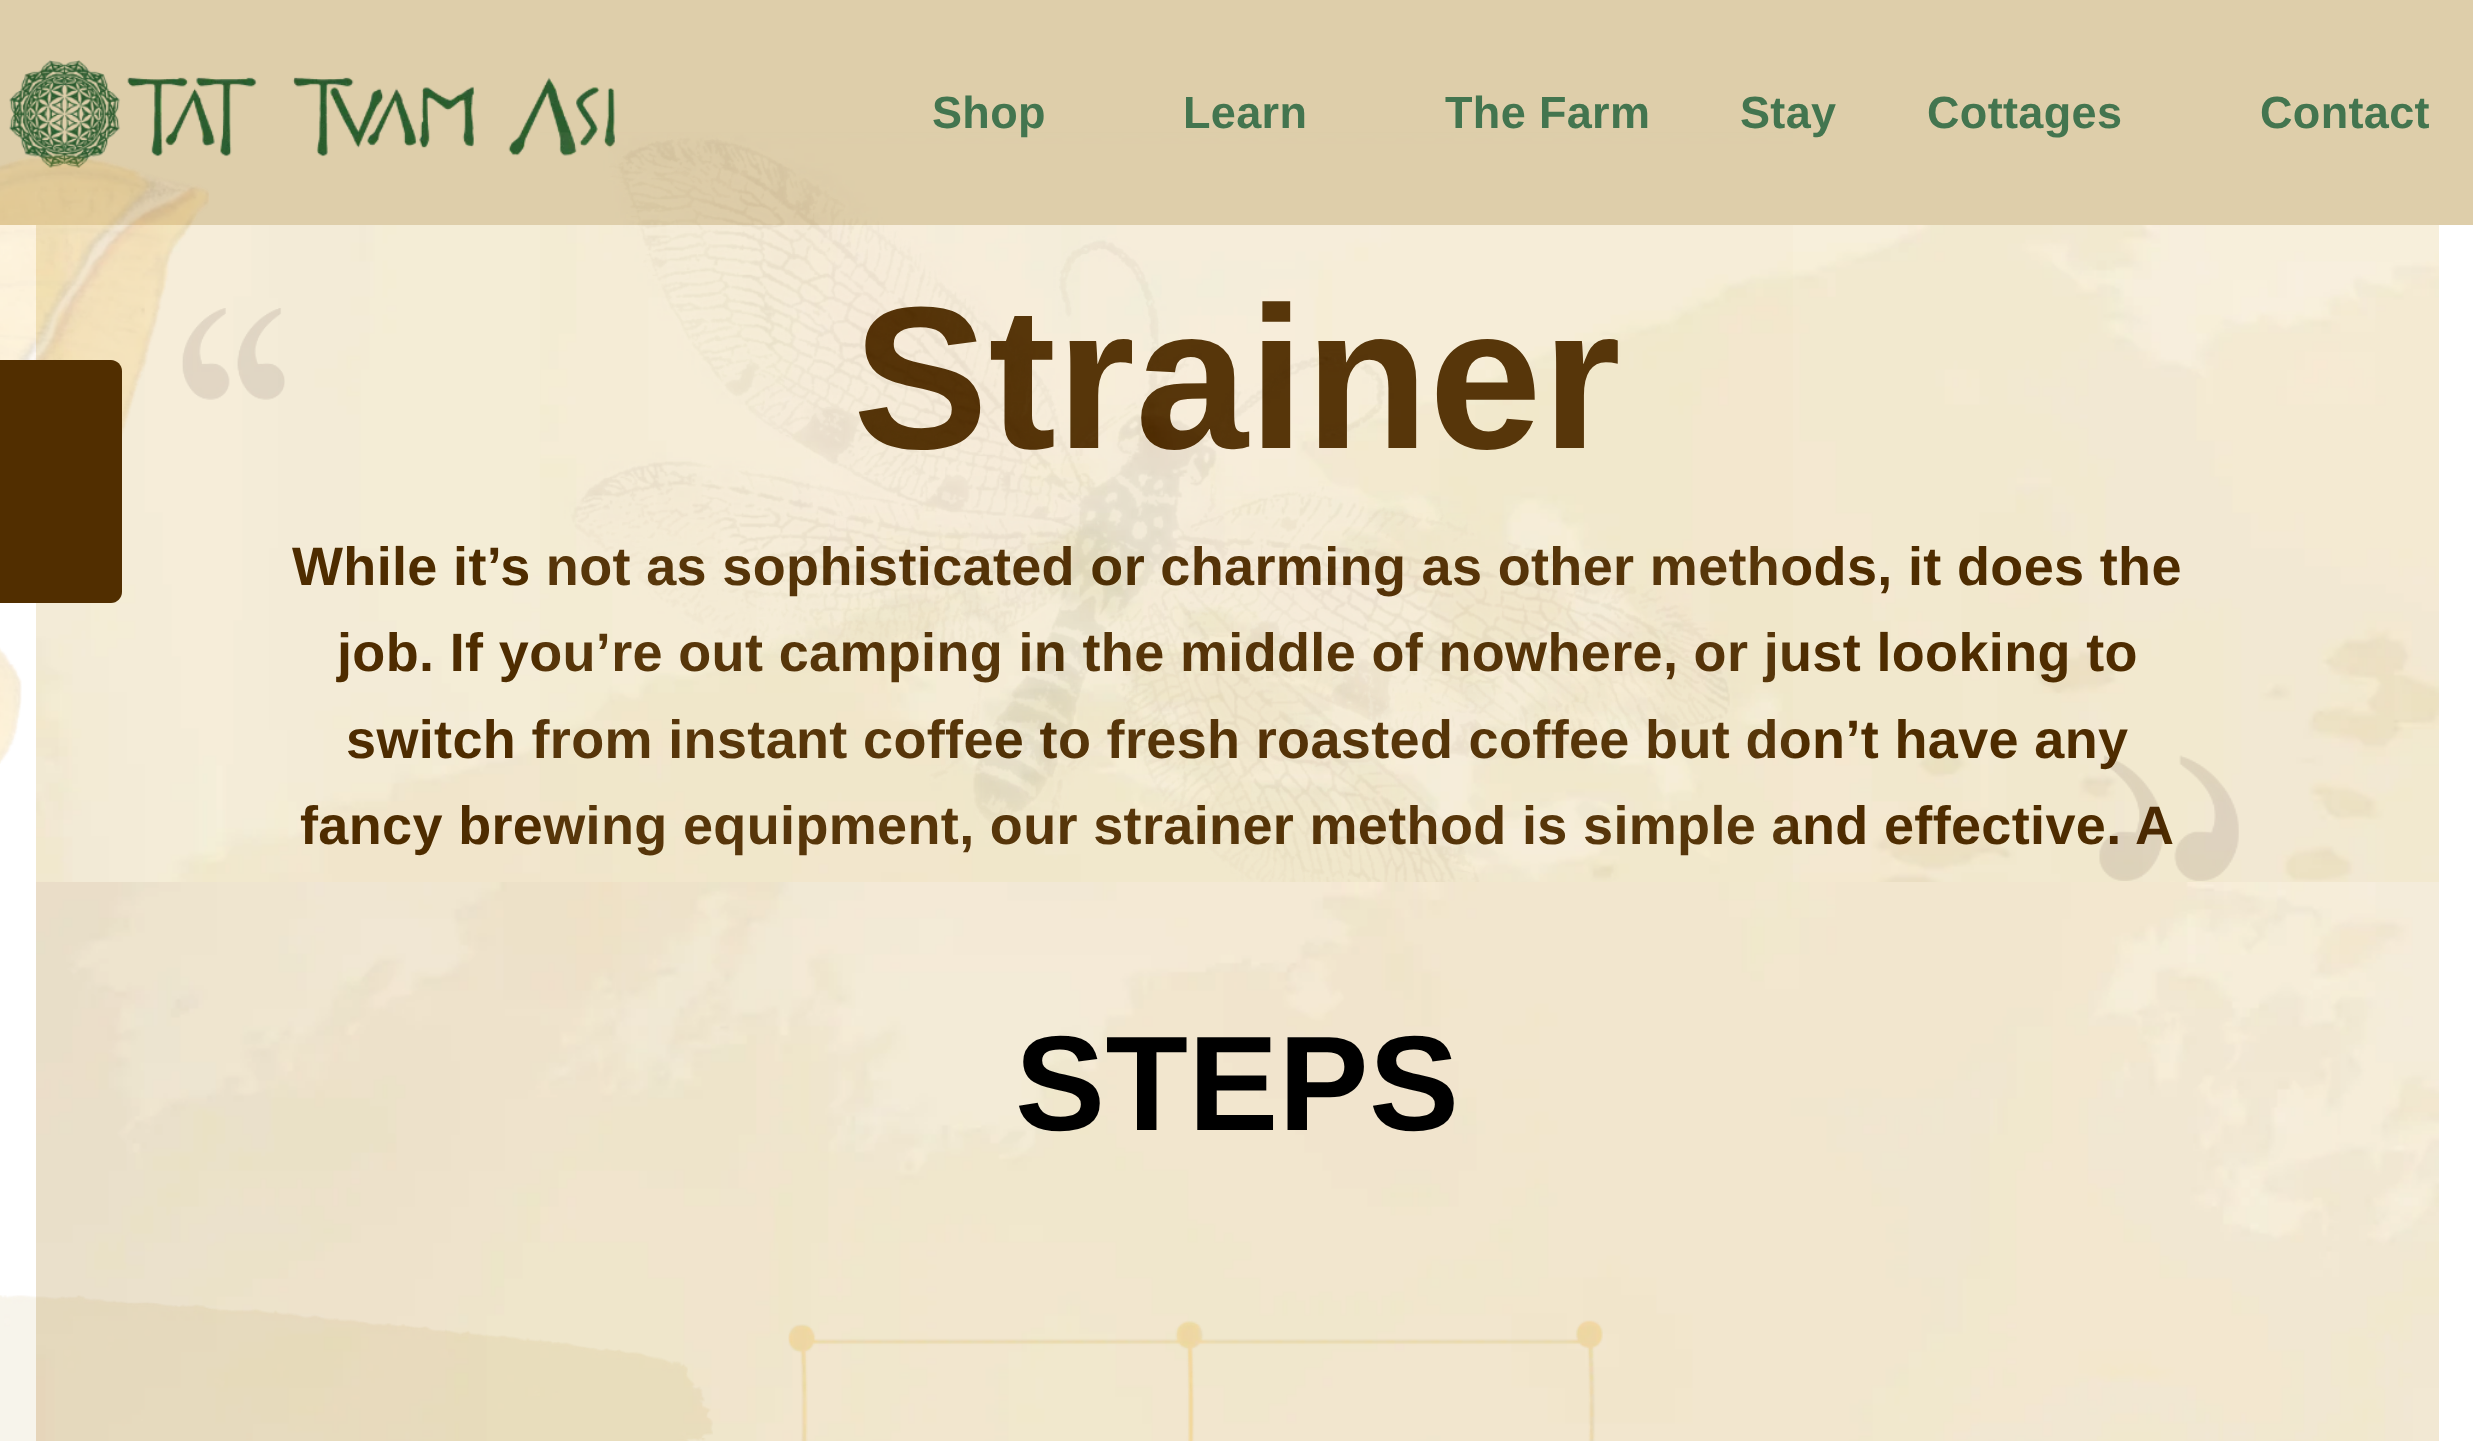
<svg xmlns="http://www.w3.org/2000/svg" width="2473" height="1441">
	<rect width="100%" height="100%" fill="#FFFFFF" />
	<rect x="0" y="0" width="2473" height="225" fill="#DECEAA" />
	<image x="9" y="60" width="606" height="108" href="assets/img1.png" />
	<image x="36" y="225" width="2403" height="657" href="assets/img6.png" />
	<image x="0" y="153" width="209" height="611" href="assets/img2.png" />
	<path d="M0 360H111C117 360 122 365 122 371V482H0Z" fill="#512E00" />
	<path d="M0 482H122V592C122 598 117 603 111 603H0Z" fill="#512E00" />
	<text x="853" y="448" font-family="Liberation Sans" font-size="202.5" font-weight="700" letter-spacing="0.35" fill="#4E2C00">Strainer</text>
	<g font-family="Liberation Sans" font-size="54" font-weight="700" letter-spacing="0.35" fill="#4E2C00">
		<text x="292" y="585">While it’s not as sophisticated or charming as other methods, it does the</text>
		<text x="337" y="671">job. If you’re out camping in the middle of nowhere, or just looking to</text>
		<text x="346" y="758">switch from instant coffee to fresh roasted coffee but don’t have any</text>
		<text x="300" y="844">fancy brewing equipment, our strainer method is simple and effective. A</text>
	</g>
	<image x="540" y="132" width="1253" height="750" href="assets/img4.png" />
	<g font-family="Liberation Sans" font-size="45" font-weight="700" letter-spacing="0.35" fill="#43754F">
		<text x="932" y="128">Shop</text>
		<text x="1183" y="128">Learn</text>
		<text x="1445" y="128">The Farm</text>
		<text x="1740" y="128">Stay</text>
		<text x="1927" y="128">Cottages</text>
		<text x="2260" y="128">Contact</text>
	</g>
	<image x="182" y="308" width="103" height="92" href="assets/img3.png" />
	<image x="2099" y="755" width="140" height="126" href="assets/img5.png" />
	<image x="36" y="882" width="2403" height="559" href="assets/img7.png" />
	<text x="1015" y="1130" font-family="Liberation Sans" font-size="135" font-weight="700" letter-spacing="0.35" fill="#000000">STEPS</text>
	<image x="788" y="1320" width="815" height="121" href="assets/img8.png" />
	<image x="0" y="1295" width="713" height="146" href="assets/img9.png" />
</svg>
